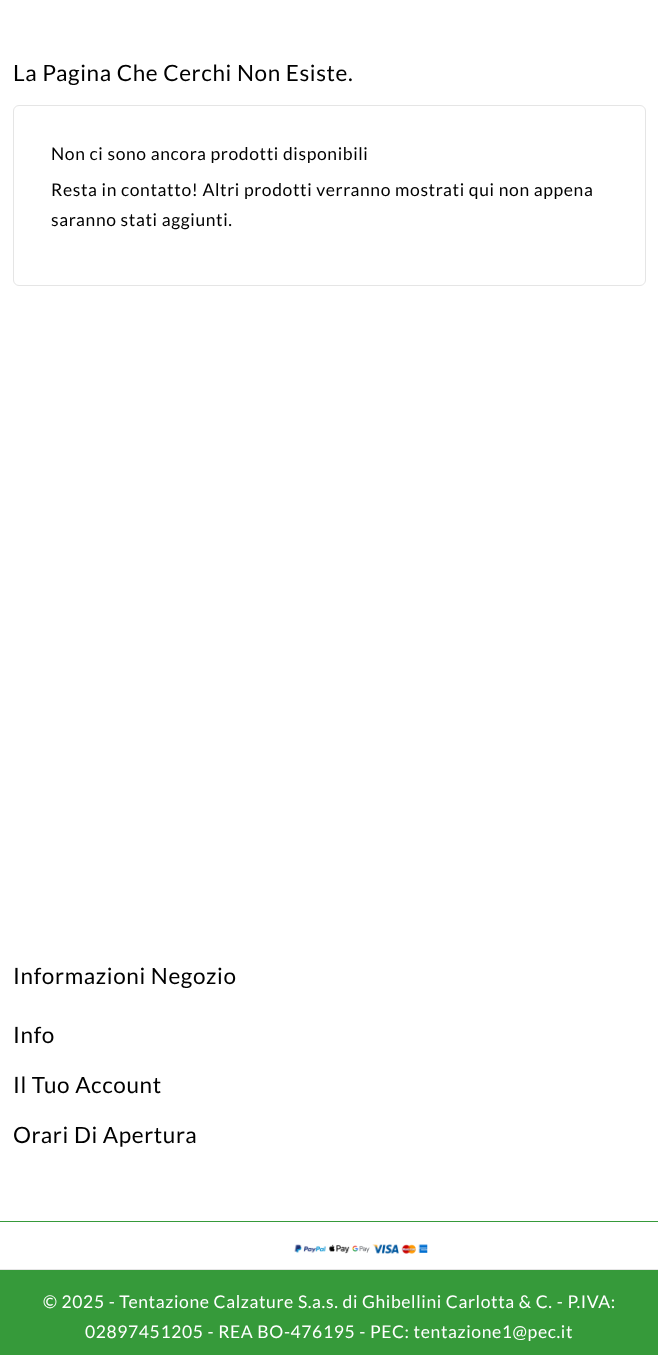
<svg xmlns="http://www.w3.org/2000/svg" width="658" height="1355">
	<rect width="100%" height="100%" fill="#FFFFFF" />
	<text x="13" y="81" font-family="Lato" font-size="22.5" letter-spacing="0.62" fill="#000000">La Pagina Che Cerchi Non Esiste.</text>
	<rect x="13.5" y="105.5" width="632" height="180" rx="5.5" fill="none" stroke="#E5E5E5" />
	<g font-family="Lato" font-size="17.5" letter-spacing="0.62" fill="#000000">
		<text x="51" y="160">Non ci sono ancora prodotti disponibili</text>
		<text x="51" y="196">Resta in contatto! Altri prodotti verranno mostrati qui non appena</text>
		<text x="51" y="226">saranno stati aggiunti.</text>
	</g>
	<g font-family="Lato" font-size="22.5" letter-spacing="0.62" fill="#000000">
		<text x="13" y="984">Informazioni Negozio</text>
		<text x="13" y="1043">Info</text>
		<text x="13" y="1093">Il Tuo Account</text>
		<text x="13" y="1143">Orari Di Apertura</text>
	</g>
	<rect x="0" y="1221" width="658" height="1" fill="#369A3A" />
	<image x="294" y="1244" width="134" height="10" href="assets/img1.png" />
	<rect x="0" y="1270" width="658" height="85" fill="#369A3A" />
	<rect x="0" y="1269" width="658" height="1" fill="#E5E5E5" />
	<g font-family="Lato" font-size="17.5" letter-spacing="0.62" fill="#FFFFFF">
		<text x="43" y="1308">© 2025 - Tentazione Calzature S.a.s. di Ghibellini Carlotta &amp; C. - P.IVA:</text>
		<text x="85" y="1338">02897451205 - REA BO-476195 - PEC: tentazione1@pec.it</text>
	</g>
</svg>
